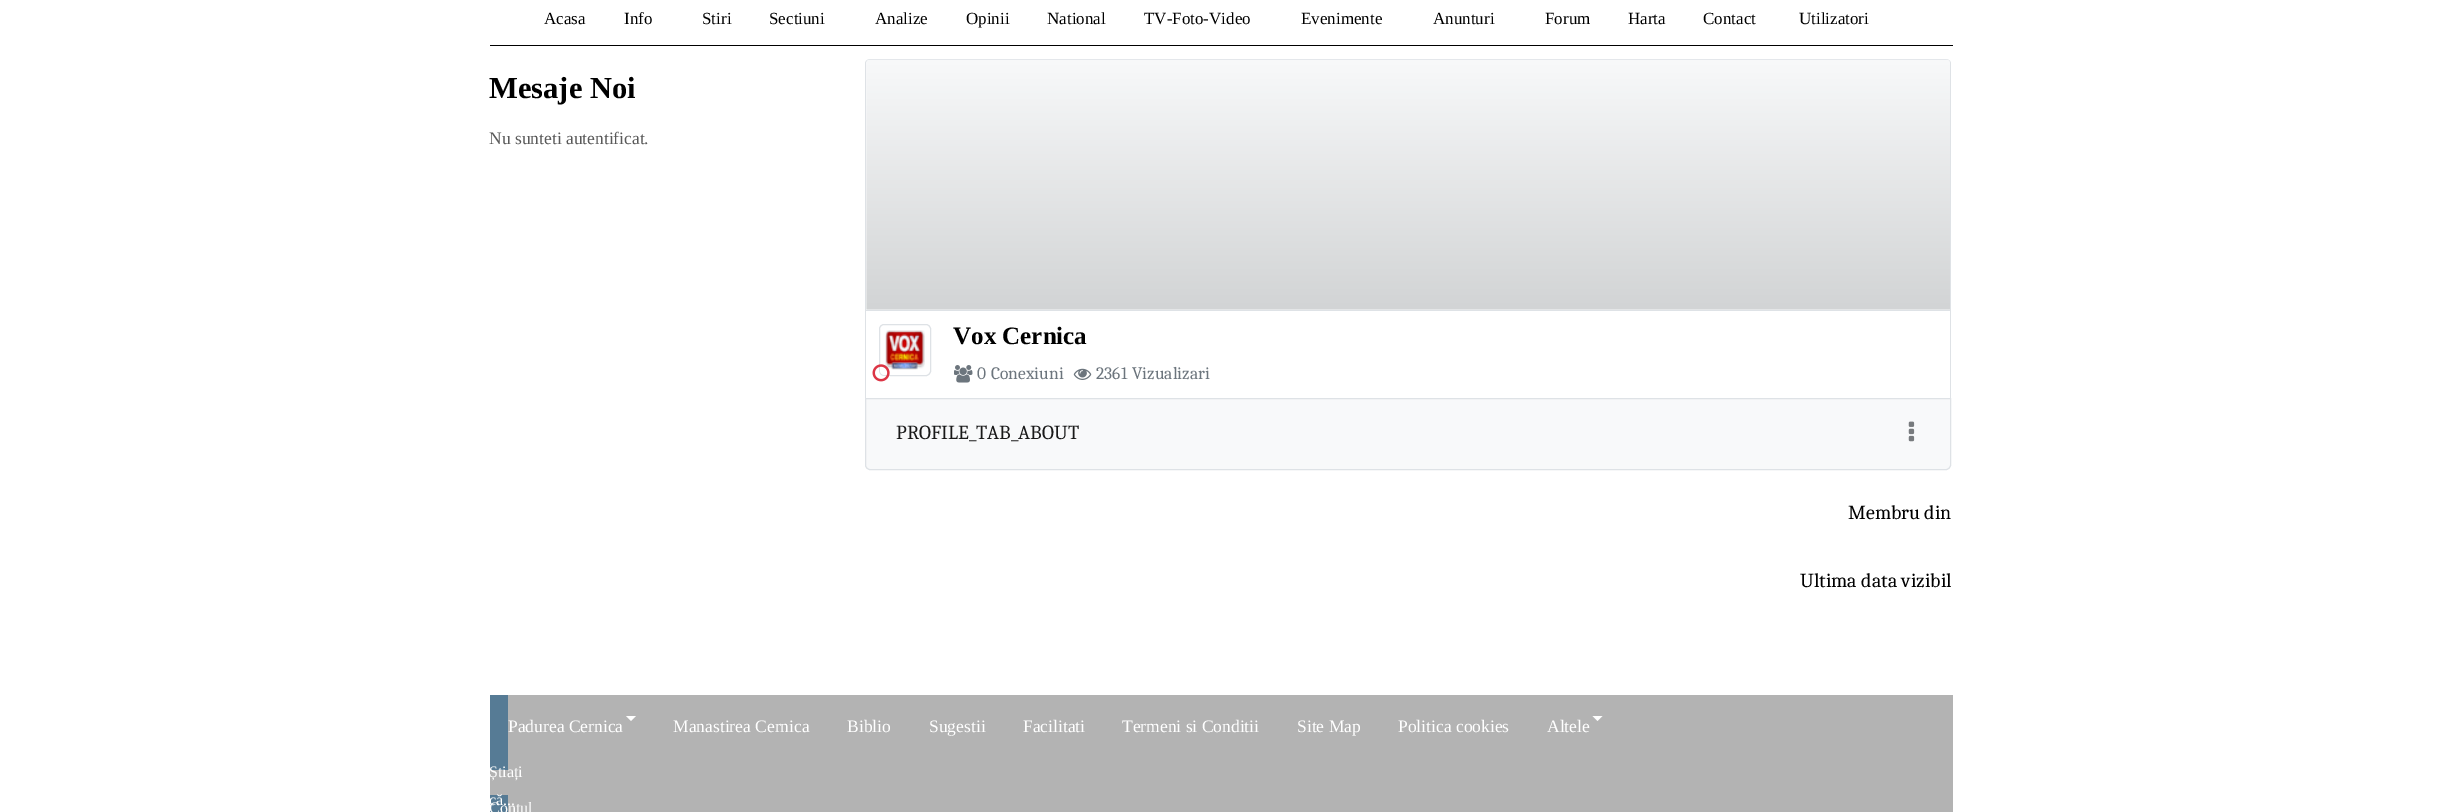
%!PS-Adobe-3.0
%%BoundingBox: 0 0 2441 812
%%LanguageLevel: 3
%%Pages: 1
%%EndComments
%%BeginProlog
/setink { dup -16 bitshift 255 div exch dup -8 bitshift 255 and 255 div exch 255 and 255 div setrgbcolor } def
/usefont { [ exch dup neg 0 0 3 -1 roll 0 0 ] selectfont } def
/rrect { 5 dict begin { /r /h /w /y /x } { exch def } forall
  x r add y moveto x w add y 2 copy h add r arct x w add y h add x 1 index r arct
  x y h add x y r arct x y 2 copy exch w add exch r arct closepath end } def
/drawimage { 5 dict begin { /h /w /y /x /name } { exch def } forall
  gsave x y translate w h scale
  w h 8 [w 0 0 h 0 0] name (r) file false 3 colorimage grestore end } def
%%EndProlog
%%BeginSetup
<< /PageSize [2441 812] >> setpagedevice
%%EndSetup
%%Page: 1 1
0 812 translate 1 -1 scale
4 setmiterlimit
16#FFFFFF setink
0 0 2441 812 rectfill
16#000000 setink
490 45 1463 1 rectfill
/LiberationSerif-Regular 17 usefont
[
    [(Acasa) 544 24]
    [(Info) 624 24]
    [(Stiri) 702 24]
    [(Sectiuni) 769 24]
    [(Analize) 875 24]
    [(Opinii) 966 24]
    [(National) 1047 24]
    [(TV-Foto-Video) 1144 24]
    [(Evenimente) 1301 24]
    [(Anunturi) 1433 24]
    [(Forum) 1545 24]
    [(Harta) 1628 24]
    [(Contact) 1703 24]
    [(Utilizatori) 1799 24]
] { aload pop moveto show } forall
/LiberationSerif-Bold 30.5 usefont
489 98 moveto (Mesaje Noi) show
/LiberationSerif-Regular 17.5 usefont
16#5A5A5A setink
489 144 moveto (Nu sunteti autentificat.) show
16#DEE2E6 setink
870 59 moveto 1946 59 lineto 1949 59 1951 61 1951 64 curveto 1951 398 lineto 865 398 lineto 865 64 lineto 865 61 867 59 870 59 curveto closepath 870 60 moveto 1946 60 lineto 1948 60 1950 62 1950 64 curveto 1950 398 lineto 866 398 lineto 866 64 lineto 866 62 868 60 870 60 curveto closepath eofill
16#F8F9FA setink
870 60 moveto 1946 60 lineto 1948 60 1950 62 1950 64 curveto 1950 310 lineto 866 310 lineto 866 64 lineto 866 62 868 60 870 60 curveto closepath fill
(img1.raw) 866 59 1084 251 drawimage
16#DEE2E6 setink
866 310 1084 1 rectfill
879.5 324.5 51 51 4.5 rrect stroke
(img2.raw) 885 330 40 40 drawimage
(img3.raw) 872 364 18 18 drawimage
/LiberationSerif-Bold 25 usefont
16#000000 setink
953 344 moveto (Vox Cernica) show
(img4.raw) 954 365 19 18 drawimage
/Caladea-Regular 17.5 usefont
16#6C757D setink
977 379 moveto (0) show
991 379 moveto (Conexiuni) show
(img5.raw) 1073 368 19 12 drawimage
1096 379 moveto (2361) show
1132 379 moveto (Vizualizari) show
16#F8F9FA setink
865.5 398.5 moveto 1950.5 398.5 lineto 1950.5 465 lineto 1950.5 467.5 1948.5 469.5 1946 469.5 curveto 870 469.5 lineto 867.5 469.5 865.5 467.5 865.5 465 curveto closepath gsave fill grestore
16#DEE2E6 setink
stroke
/Caladea-Regular 20 usefont
16#191919 setink
896 439 moveto (PROFILE_TAB_ABOUT) show
(img6.raw) 1908 421 7 21 drawimage
16#000000 setink
1848 519 moveto (Membru din) show
1800 587 moveto (Ultima data vizibil) show
16#B3B3B3 setink
490 695 1463 117 rectfill
16#FFFFFF setink
626 716 moveto 636 716 lineto 631 721 lineto closepath fill
/LiberationSerif-Regular 17.5 usefont
[
    [(Padurea Cernica) 508 732]
    [(Manastirea Cernica) 673 732]
    [(Biblio) 847 732]
    [(Sugestii) 929 732]
    [(Facilitati) 1023 732]
    [(Termeni si Conditii) 1122 732]
    [(Site Map) 1297 732]
    [(Politica cookies) 1398 732]
] { aload pop moveto show } forall
1592.5 716 moveto 1602.5 716 lineto 1597.5 721 lineto closepath fill
1547 732 moveto (Altele) show
16#567B95 setink
490 695 18 75 rectfill
/LiberationSerif-Regular 16 usefont
16#FFFFFF setink
489 777 moveto (Știați) show
16#567B95 setink
490 795 18 17 rectfill
16#FFFFFF setink
489 805 moveto (că...) show
489 813 moveto (Contul) show
showpage
%%EOF
